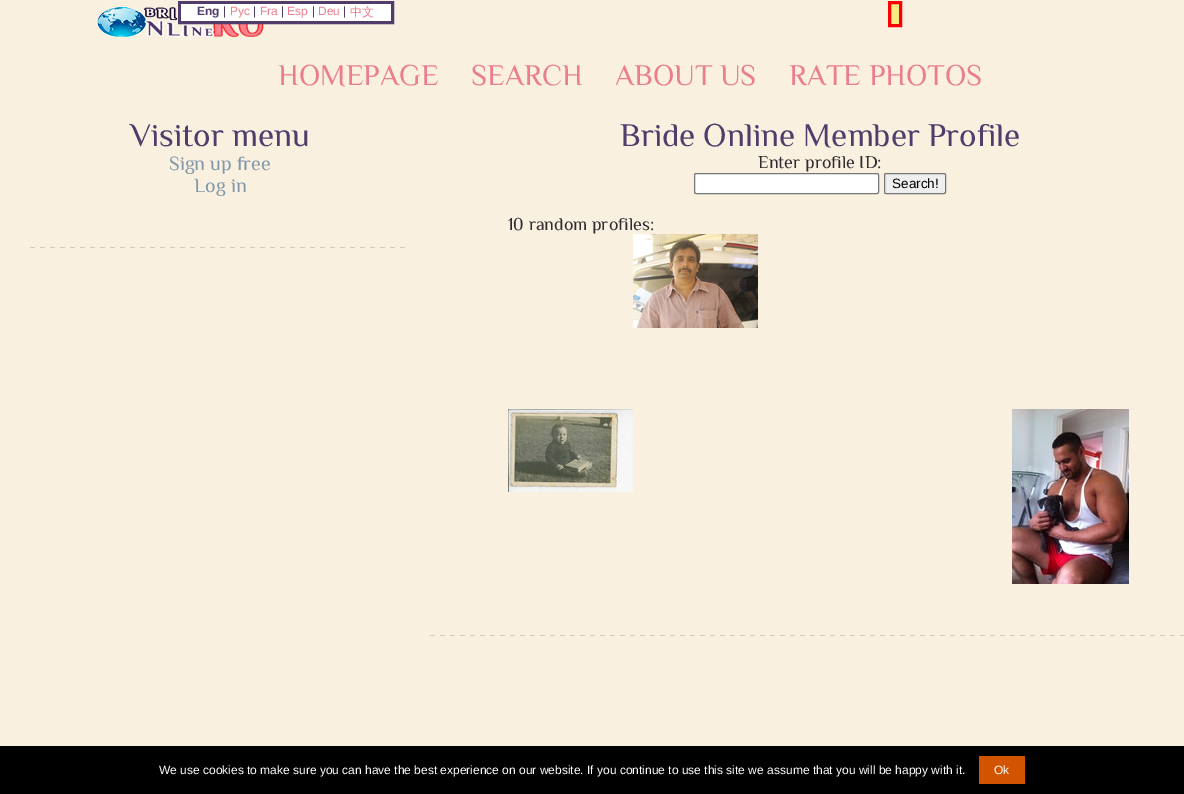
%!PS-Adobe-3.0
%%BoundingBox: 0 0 1184 794
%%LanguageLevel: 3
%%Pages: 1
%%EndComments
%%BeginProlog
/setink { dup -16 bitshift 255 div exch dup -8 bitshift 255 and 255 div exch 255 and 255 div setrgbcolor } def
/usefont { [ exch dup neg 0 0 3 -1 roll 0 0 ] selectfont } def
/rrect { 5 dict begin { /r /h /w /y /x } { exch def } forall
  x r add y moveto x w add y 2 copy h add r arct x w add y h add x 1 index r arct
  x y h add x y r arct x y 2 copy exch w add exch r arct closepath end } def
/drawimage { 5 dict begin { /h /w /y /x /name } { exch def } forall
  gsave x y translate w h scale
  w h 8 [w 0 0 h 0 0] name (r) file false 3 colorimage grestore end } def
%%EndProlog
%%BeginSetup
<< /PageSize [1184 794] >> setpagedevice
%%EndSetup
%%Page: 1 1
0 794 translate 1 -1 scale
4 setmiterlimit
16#F9F0DF setink
0 0 1184 794 rectfill
(img1.raw) 97 7 167 30 drawimage
16#503D6B setink
3 setlinewidth
179.5 2.5 213 20 rectstroke
16#FFFFFF setink
181 4 210 17 rectfill
/LiberationSans-Bold 12 usefont
16#503D6B setink
197 15 moveto (Eng) show
/LiberationSans-Regular 12 usefont
223 15 moveto (|) show
16#EB7E8D setink
230 15 moveto (Рус) show
16#503D6B setink
253 15 moveto (|) show
16#EB7E8D setink
260 15 moveto (Fra) show
16#503D6B setink
281 15 moveto (|) show
16#EB7E8D setink
287 15 moveto (Esp) show
16#503D6B setink
312 15 moveto (|) show
16#EB7E8D setink
318 15 moveto (Deu) show
16#503D6B setink
343 15 moveto (|) show
/WenQuanYiZenHei-Medium 12 usefont
16#EB7E8D setink
350 16 moveto (中文) show
16#F7EB83 setink
889.5 2.5 moveto 900.5 2.5 lineto 900.5 25.5 lineto 889.5 25.5 lineto closepath gsave fill grestore
16#FF0000 setink
stroke
/Philosopher-Regular 30 usefont
16#EB7E8D setink
[
    [(HOMEPAGE) 278 85]
    [(SEARCH) 471 85]
    [(ABOUT US) 615 85]
    [(RATE PHOTOS) 789 85]
] { aload pop moveto show } forall
/Philosopher-Regular 33 usefont
16#503D6B setink
130 146 moveto (Visitor menu) show
/Philosopher-Regular 20 usefont
16#8097A8 setink
169 170 moveto (Sign up free) show
194 192 moveto (Log in) show
(img2.raw) 30 247 375 1 drawimage
(img3.raw) 430 635 754 1 drawimage
/Philosopher-Regular 33 usefont
16#503D6B setink
620 146 moveto (Bride Online Member Profile) show
/Philosopher-Regular 18 usefont
16#302B32 setink
758 168 moveto (Enter profile ID:) show
16#FFFFFF setink
694.5 173.5 184 20 1.5 rrect gsave fill grestore
16#767676 setink
1 setlinewidth
stroke
16#EFEFEF setink
884.5 173.5 61 20 1.5 rrect gsave fill grestore
16#767676 setink
stroke
/LiberationSans-Regular 13.5 usefont
16#000000 setink
892 188 moveto (Search!) show
/Philosopher-Regular 18 usefont
16#302B32 setink
508 230 moveto (10 random profiles:) show
(img4.raw) 633 234 125 94 drawimage
(img5.raw) 508 409 125 83 drawimage
(img6.raw) 1012 409 117 175 drawimage
16#000000 setink
0 746 1184 48 rectfill
/LiberationSans-Regular 12 usefont
16#FFFFFF setink
159 774 moveto (We use cookies to make sure you can have the best experience on our website. If you continue to use this site we assume that you will be happy with it.) show
16#D35400 setink
979 756 46 28 rectfill
16#FFFFFF setink
994 774 moveto (Ok) show
showpage
%%EOF
